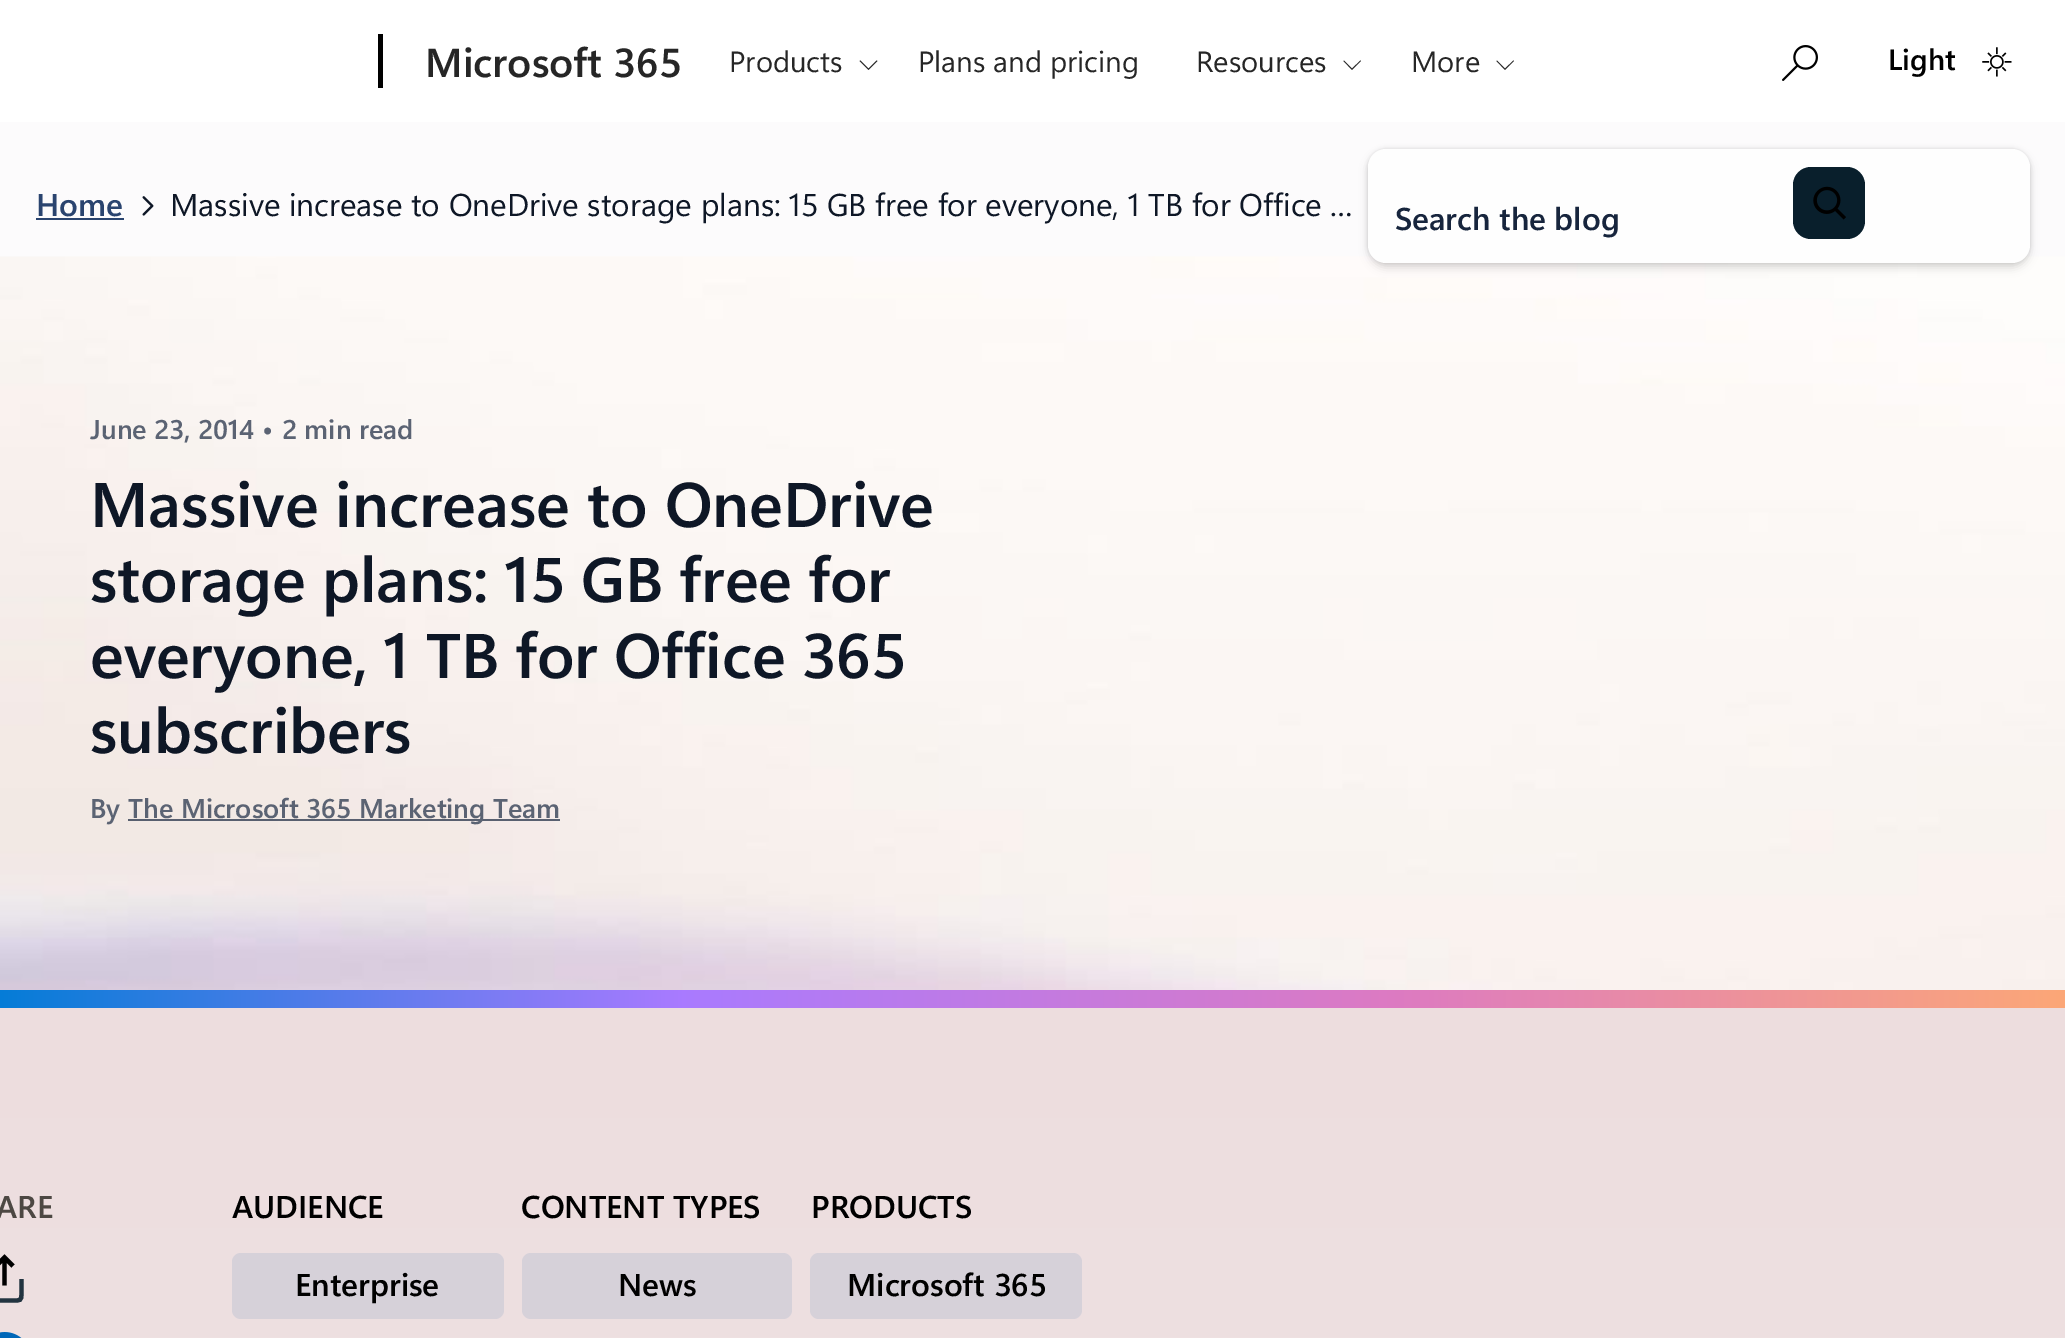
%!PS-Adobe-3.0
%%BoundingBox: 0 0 2065 1338
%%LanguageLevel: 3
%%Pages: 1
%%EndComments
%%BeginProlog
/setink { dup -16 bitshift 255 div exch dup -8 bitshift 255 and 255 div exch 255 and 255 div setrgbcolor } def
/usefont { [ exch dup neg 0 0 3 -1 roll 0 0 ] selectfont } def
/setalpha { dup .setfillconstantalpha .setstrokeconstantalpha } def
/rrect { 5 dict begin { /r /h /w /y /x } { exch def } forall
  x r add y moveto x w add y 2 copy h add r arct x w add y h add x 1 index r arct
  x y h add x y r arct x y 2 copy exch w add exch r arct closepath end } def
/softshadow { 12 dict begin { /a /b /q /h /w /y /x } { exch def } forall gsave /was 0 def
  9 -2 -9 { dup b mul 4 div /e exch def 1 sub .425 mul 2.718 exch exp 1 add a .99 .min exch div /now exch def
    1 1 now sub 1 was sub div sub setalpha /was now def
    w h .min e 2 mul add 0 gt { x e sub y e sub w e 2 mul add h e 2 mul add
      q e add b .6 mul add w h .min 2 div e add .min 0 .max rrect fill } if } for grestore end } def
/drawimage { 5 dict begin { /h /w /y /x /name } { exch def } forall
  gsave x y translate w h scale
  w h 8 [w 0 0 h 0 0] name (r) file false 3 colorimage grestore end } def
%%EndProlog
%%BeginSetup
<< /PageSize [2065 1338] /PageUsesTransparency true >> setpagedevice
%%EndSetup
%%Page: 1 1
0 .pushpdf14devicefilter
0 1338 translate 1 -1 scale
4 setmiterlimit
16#FCFBFC setink
0 0 2065 1338 rectfill
16#FFFFFF setink
0 0 2065 122 rectfill
16#000000 setink
378 34 5 54 rectfill
/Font-SemiBold 40.5 usefont
16#262626 setink
425 77 moveto (Microsoft 365) show
/Font-Regular 29.25 usefont
729 72 moveto (Products) show
876.5 60.5 moveto 877.5 61 lineto 868.5 70 lineto 859.5 61 lineto 860.5 60.5 lineto 868.5 68.5 lineto closepath fill
918 72 moveto (Plans and pricing) show
1196 72 moveto (Resources) show
1360.5 60.5 moveto 1361 61 lineto 1352 70 lineto 1343.5 61 lineto 1344 60.5 lineto 1352 68.5 lineto closepath fill
1411 72 moveto (More) show
1513.5 60.5 moveto 1514 61 lineto 1505 70 lineto 1496.5 61 lineto 1497 60.5 lineto 1505 68.5 lineto closepath fill
(img1.raw) 1782 45 36 36 drawimage
/Font-SemiBold 29.25 usefont
16#000000 setink
1888 70 moveto (Light) show
(img2.raw) 1982 47 30 30 drawimage
(img3.raw) 0 256 2065 734 drawimage
/Font-SemiBold 31.5 usefont
16#2A446F setink
36 216 moveto (Home) show
36 218 88 2 rectfill
(img4.raw) 142 196 12 20 drawimage
/Font-Regular 31.5 usefont
16#0E1726 setink
170 216 moveto (Massive increase to OneDrive storage plans: 15 GB free for everyone, 1 TB for Office …) show
16#000000 setink
1368 149 662 114 18 2 0.12 softshadow
1368 153 662 115 18 4.5 0.14 softshadow
16#FEFEFE setink
1368 149 662 114 18 rrect fill
/Font-SemiBold 31.5 usefont
16#17253D setink
1395 230 moveto (Search the blog) show
16#091F2C setink
1793 167 72 72 18 rrect fill
(img5.raw) 1813 186 33 34 drawimage
/Font-SemiBold 27 usefont
16#5B6373 setink
90 439 moveto (June 23, 2014 •) show
282 439 moveto (2 min read) show
/Font-SemiBold 63 usefont
16#0E1726 setink
90 527 moveto (Massive increase to OneDrive) show
90 602 moveto -1.5 0 32 (storage plans: 15 GB free for) widthshow
90 678 moveto -1.5 0 32 (everyone, 1 TB for Office 365) widthshow
90 753 moveto (subscribers) show
/Font-SemiBold 27 usefont
16#5B6373 setink
90 818 moveto (By) show
0.7 setalpha
16#17253D setink
128 819 432 2 rectfill
1 setalpha
16#5B6373 setink
128 818 moveto (The Microsoft 365 Marketing Team) show
gsave 0 990 moveto 2065 990 lineto 2065 1008 lineto 0 1008 lineto closepath clip newpath
<< /ShadingType 2 /ColorSpace /DeviceRGB /Coords [0 999 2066 999] /Extend [true true] /Function << /FunctionType 3 /Domain [0 1] /Functions [<< /FunctionType 2 /Domain [0 1] /C0 [0.02 0.49 0.843] /C1 [0.663 0.478 1] /N 1 >> << /FunctionType 2 /Domain [0 1] /C0 [0.663 0.478 1] /C1 [0.863 0.478 0.765] /N 1 >> << /FunctionType 2 /Domain [0 1] /C0 [0.863 0.478 0.765] /C1 [0.988 0.655 0.467] /N 1 >>] /Bounds [0.33 0.67] /Encode [0 1 0 1 0 1] >> >> shfill grestore
gsave 0 1008 moveto 2065 1008 lineto 2065 1338 lineto 0 1338 lineto closepath clip newpath
<< /ShadingType 2 /ColorSpace /DeviceRGB /Coords [1033 1008 1033 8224] /Extend [true true] /Function << /FunctionType 3 /Domain [0 1] /Functions [<< /FunctionType 2 /Domain [0 1] /C0 [0.929 0.867 0.871] /C1 [0.992 0.984 0.98] /N 1 >> << /FunctionType 2 /Domain [0 1] /C0 [0.992 0.984 0.98] /C1 [0.929 0.867 0.871] /N 1 >>] /Bounds [0.5] /Encode [0 1 0 1] >> >> shfill grestore
/Font-SemiBold 31.5 usefont
16#4D4843 setink
-4 1218 moveto (ARE) show
16#223440 setink
4.3 setlinewidth
-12.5 1279 moveto -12.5 1293.5 lineto -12.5 1301 -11 1300.5 -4 1300.5 curveto 13 1300.5 lineto 20 1300.5 21.5 1301 21.5 1293.5 curveto 21.5 1279 lineto stroke
16#000000 setink
13 1266 moveto 4.5 1257.5 lineto -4 1266 lineto 4.5 1257.5 moveto 4.5 1285.5 lineto stroke
(img6.raw) 0 1332 22 6 drawimage
232 1218 moveto (AUDIENCE) show
16#D6D1D9 setink
232 1253 272 66 9 rrect fill
16#000000 setink
295 1296 moveto (Enterprise) show
521 1218 moveto (CONTENT TYPES) show
16#D6D1D9 setink
522 1253 270 66 9 rrect fill
16#000000 setink
618 1296 moveto (News) show
811 1218 moveto (PRODUCTS) show
16#D6D1D9 setink
810 1253 272 66 9 rrect fill
16#000000 setink
847 1296 moveto (Microsoft 365) show
.poppdf14devicefilter showpage
%%EOF
